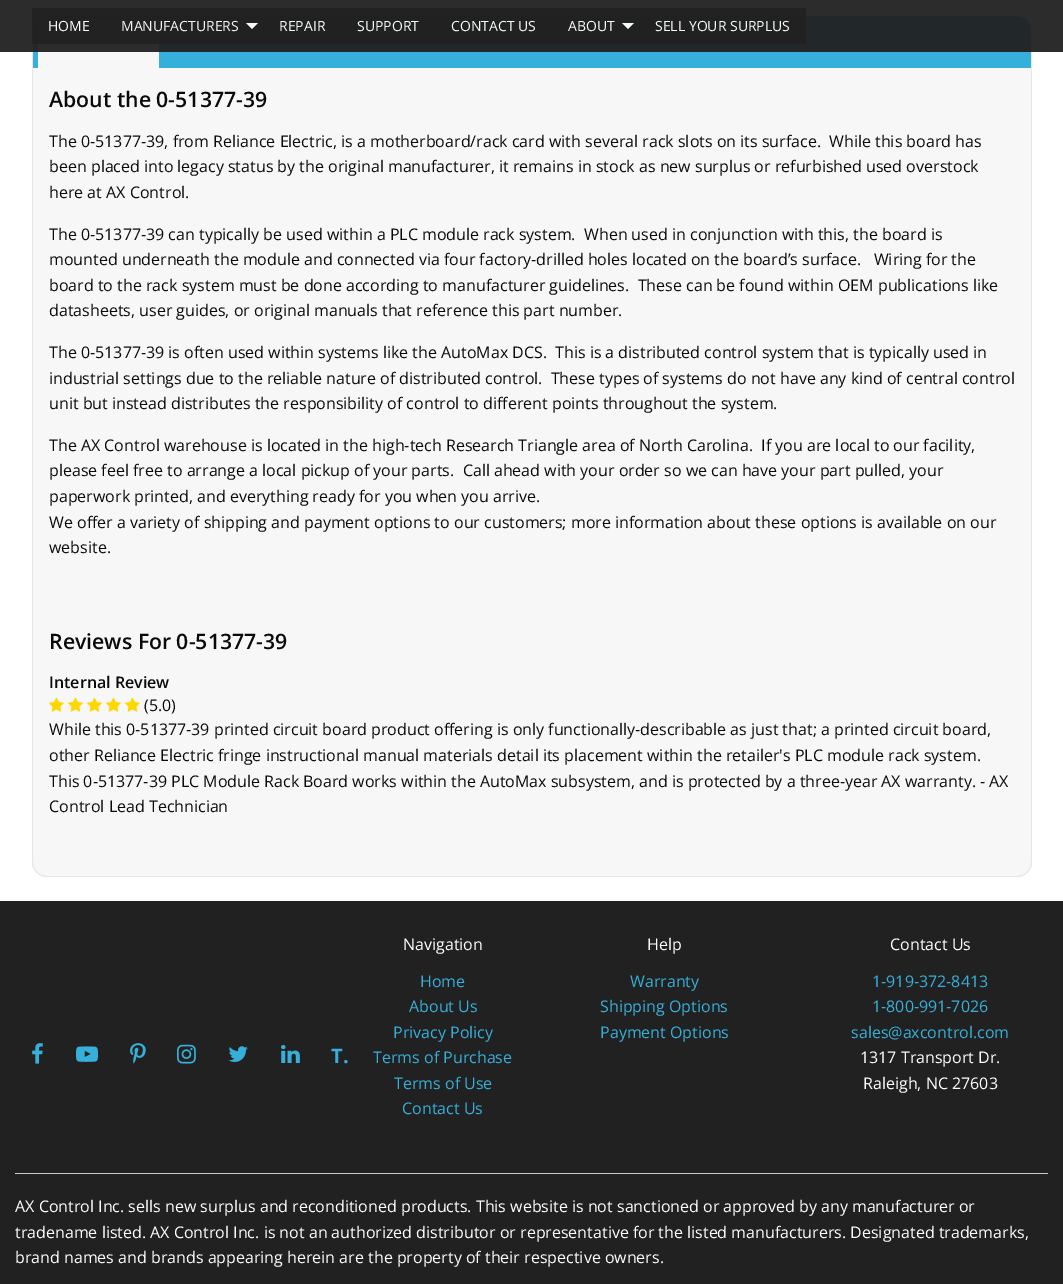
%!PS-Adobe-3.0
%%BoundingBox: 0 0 1063 1284
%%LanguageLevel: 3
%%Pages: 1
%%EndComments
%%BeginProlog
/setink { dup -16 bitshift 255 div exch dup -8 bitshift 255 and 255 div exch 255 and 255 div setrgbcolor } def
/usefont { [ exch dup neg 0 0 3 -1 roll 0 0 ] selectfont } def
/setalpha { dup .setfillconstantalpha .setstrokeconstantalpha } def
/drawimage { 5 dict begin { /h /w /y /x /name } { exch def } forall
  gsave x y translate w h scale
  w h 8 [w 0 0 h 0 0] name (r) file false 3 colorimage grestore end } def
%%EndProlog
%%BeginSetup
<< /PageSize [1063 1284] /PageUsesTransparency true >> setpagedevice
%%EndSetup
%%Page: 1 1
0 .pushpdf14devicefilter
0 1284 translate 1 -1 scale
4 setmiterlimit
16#FFFFFF setink
0 0 1063 1284 rectfill
16#36B0DA setink
47 15 moveto 1017 15 lineto 1025.5 15 1032 21.5 1032 30 curveto 1032 68 lineto 32 68 lineto 32 30 lineto 32 21.5 38.5 15 47 15 curveto closepath fill
16#E6E6E6 setink
47 15 moveto 1017 15 lineto 1025 15 1032 22 1032 30 curveto 1032 68 lineto 32 68 lineto 32 30 lineto 32 22 39 15 47 15 curveto closepath 47 16 moveto 1017 16 lineto 1025 16 1031 22 1031 30 curveto 1031 68 lineto 33 68 lineto 33 30 lineto 33 22 39 16 47 16 curveto closepath eofill
16#F7F7F7 setink
53 18 moveto 144 18 lineto 152.5 18 159 24.5 159 33 curveto 159 68 lineto 38 68 lineto 38 33 lineto 38 24.5 44.5 18 53 18 curveto closepath fill
0.95 setalpha
16#212121 setink
0 0 1063 52 rectfill
32 8 774 36 rectfill
/OpenSans-Regular 14 usefont
1 setalpha
16#FFFFFF setink
48 31 moveto (HOME) show
16#F4F4F4 setink
121 31 moveto (MANUFACTURERS) show
16#F5FBFD setink
246 23 moveto 258 23 lineto 252 29 lineto closepath fill
[
    [(REPAIR) 279 31]
    [(SUPPORT) 357 31]
    [(CONTACT US) 451 31]
    [(ABOUT) 568 31]
] { aload pop moveto show } forall
622 23 moveto 634 23 lineto 628 29 lineto closepath fill
655 31 moveto (SELL YOUR SURPLUS) show
16#F7F7F7 setink
32 68 moveto 1032 68 lineto 1032 862 lineto 1032 870.5 1025.5 877 1017 877 curveto 47 877 lineto 38.5 877 32 870.5 32 862 curveto closepath fill
16#E6E6E6 setink
32 68 moveto 1032 68 lineto 1032 862 lineto 1032 870 1025 877 1017 877 curveto 47 877 lineto 39 877 32 870 32 862 curveto closepath 33 68 moveto 1031 68 lineto 1031 862 lineto 1031 870 1025 876 1017 876 curveto 47 876 lineto 39 876 33 870 33 862 curveto closepath eofill
/OpenSans-SemiBold 21.25 usefont
16#0A0A0A setink
49 107 moveto (About the 0-51377-39) show
/OpenSans-Regular 16 usefont
[
    [(The 0-51377-39, from Reliance Electric, is a motherboard/rack card with several rack slots on its surface.  While this board has) 49 147]
    [(been placed into legacy status by the original manufacturer, it remains in stock as new surplus or refurbished used overstock) 49 172]
    [(here at AX Control.) 49 198]
    [(The 0-51377-39 can typically be used within a PLC module rack system.  When used in conjunction with this, the board is) 49 240]
    [(mounted underneath the module and connected via four factory-drilled holes located on the board’s surface.   Wiring for the) 49 265]
    [(board to the rack system must be done according to manufacturer guidelines.  These can be found within OEM publications like) 49 291]
    [(datasheets, user guides, or original manuals that reference this part number.) 49 316]
    [(The 0-51377-39 is often used within systems like the AutoMax DCS.  This is a distributed control system that is typically used in) 49 358]
    [(industrial settings due to the reliable nature of distributed control.  These types of systems do not have any kind of central control) 49 384]
    [(unit but instead distributes the responsibility of control to different points throughout the system.) 49 409]
    [(The AX Control warehouse is located in the high-tech Research Triangle area of North Carolina.  If you are local to our facility,) 49 451]
    [(please feel free to arrange a local pickup of your parts.  Call ahead with your order so we can have your part pulled, your) 49 476]
    [(paperwork printed, and everything ready for you when you arrive.) 49 502]
    [(We offer a variety of shipping and payment options to our customers; more information about these options is available on our) 49 528]
    [(website.) 49 553]
] { aload pop moveto show } forall
/OpenSans-SemiBold 21.25 usefont
49 649 moveto (Reviews For 0-51377-39) show
/OpenSans-SemiBold 16 usefont
49 688 moveto (Internal Review) show
(img1.raw) 49 697 15 15 drawimage
(img1.raw) 68 697 15 15 drawimage
(img1.raw) 87 697 15 15 drawimage
(img1.raw) 106 697 15 15 drawimage
(img1.raw) 125 697 15 15 drawimage
/OpenSans-Regular 16 usefont
[
    [(\(5.0\)) 144 711]
    [(While this 0-51377-39 printed circuit board product offering is only functionally-describable as just that; a printed circuit board,) 49 735]
    [(other Reliance Electric fringe instructional manual materials detail its placement within the retailer's PLC module rack system.) 49 761]
    [(This 0-51377-39 PLC Module Rack Board works within the AutoMax subsystem, and is protected by a three-year AX warranty. - AX) 49 787]
    [(Control Lead Technician) 49 812]
] { aload pop moveto show } forall
16#212121 setink
0 901 1063 383 rectfill
(img2.raw) 32 1043 11 21 drawimage
(img3.raw) 76 1046 22 16 drawimage
(img4.raw) 130 1043 16 21 drawimage
(img5.raw) 177 1044 19 20 drawimage
(img6.raw) 228 1046 20 16 drawimage
(img7.raw) 281 1045 19 18 drawimage
/OpenSans-Bold 20 usefont
16#36B0DA setink
331 1063 moveto (T.) show
/OpenSans-Regular 16 usefont
16#FFFFFF setink
403 950 moveto (Navigation) show
16#36B0DA setink
[
    [(Home) 420 987]
    [(About Us) 409 1012]
    [(Privacy Policy) 393 1038]
    [(Terms of Purchase) 373 1063]
    [(Terms of Use) 394 1089]
    [(Contact Us) 402 1114]
] { aload pop moveto show } forall
16#FFFFFF setink
647 950 moveto (Help) show
16#36B0DA setink
[
    [(Warranty) 630 987]
    [(Shipping Options) 600 1012]
    [(Payment Options) 600 1038]
] { aload pop moveto show } forall
16#FFFFFF setink
890 950 moveto (Contact Us) show
16#36B0DA setink
[
    [(1-919-372-8413) 872 987]
    [(1-800-991-7026) 872 1012]
    [(sales@axcontrol.com) 851 1038]
] { aload pop moveto show } forall
16#FFFFFF setink
860 1063 moveto (1317 Transport Dr.) show
863 1089 moveto (Raleigh, NC 27603) show
16#CACACA setink
15 1173 1033 1 rectfill
16#FFFFFF setink
[
    [(AX Control Inc. sells new surplus and reconditioned products. This website is not sanctioned or approved by any manufacturer or) 15 1212]
    [(tradename listed. AX Control Inc. is not an authorized distributor or representative for the listed manufacturers. Designated trademarks,) 15 1238]
    [(brand names and brands appearing herein are the property of their respective owners.) 15 1263]
] { aload pop moveto show } forall
.poppdf14devicefilter showpage
%%EOF
